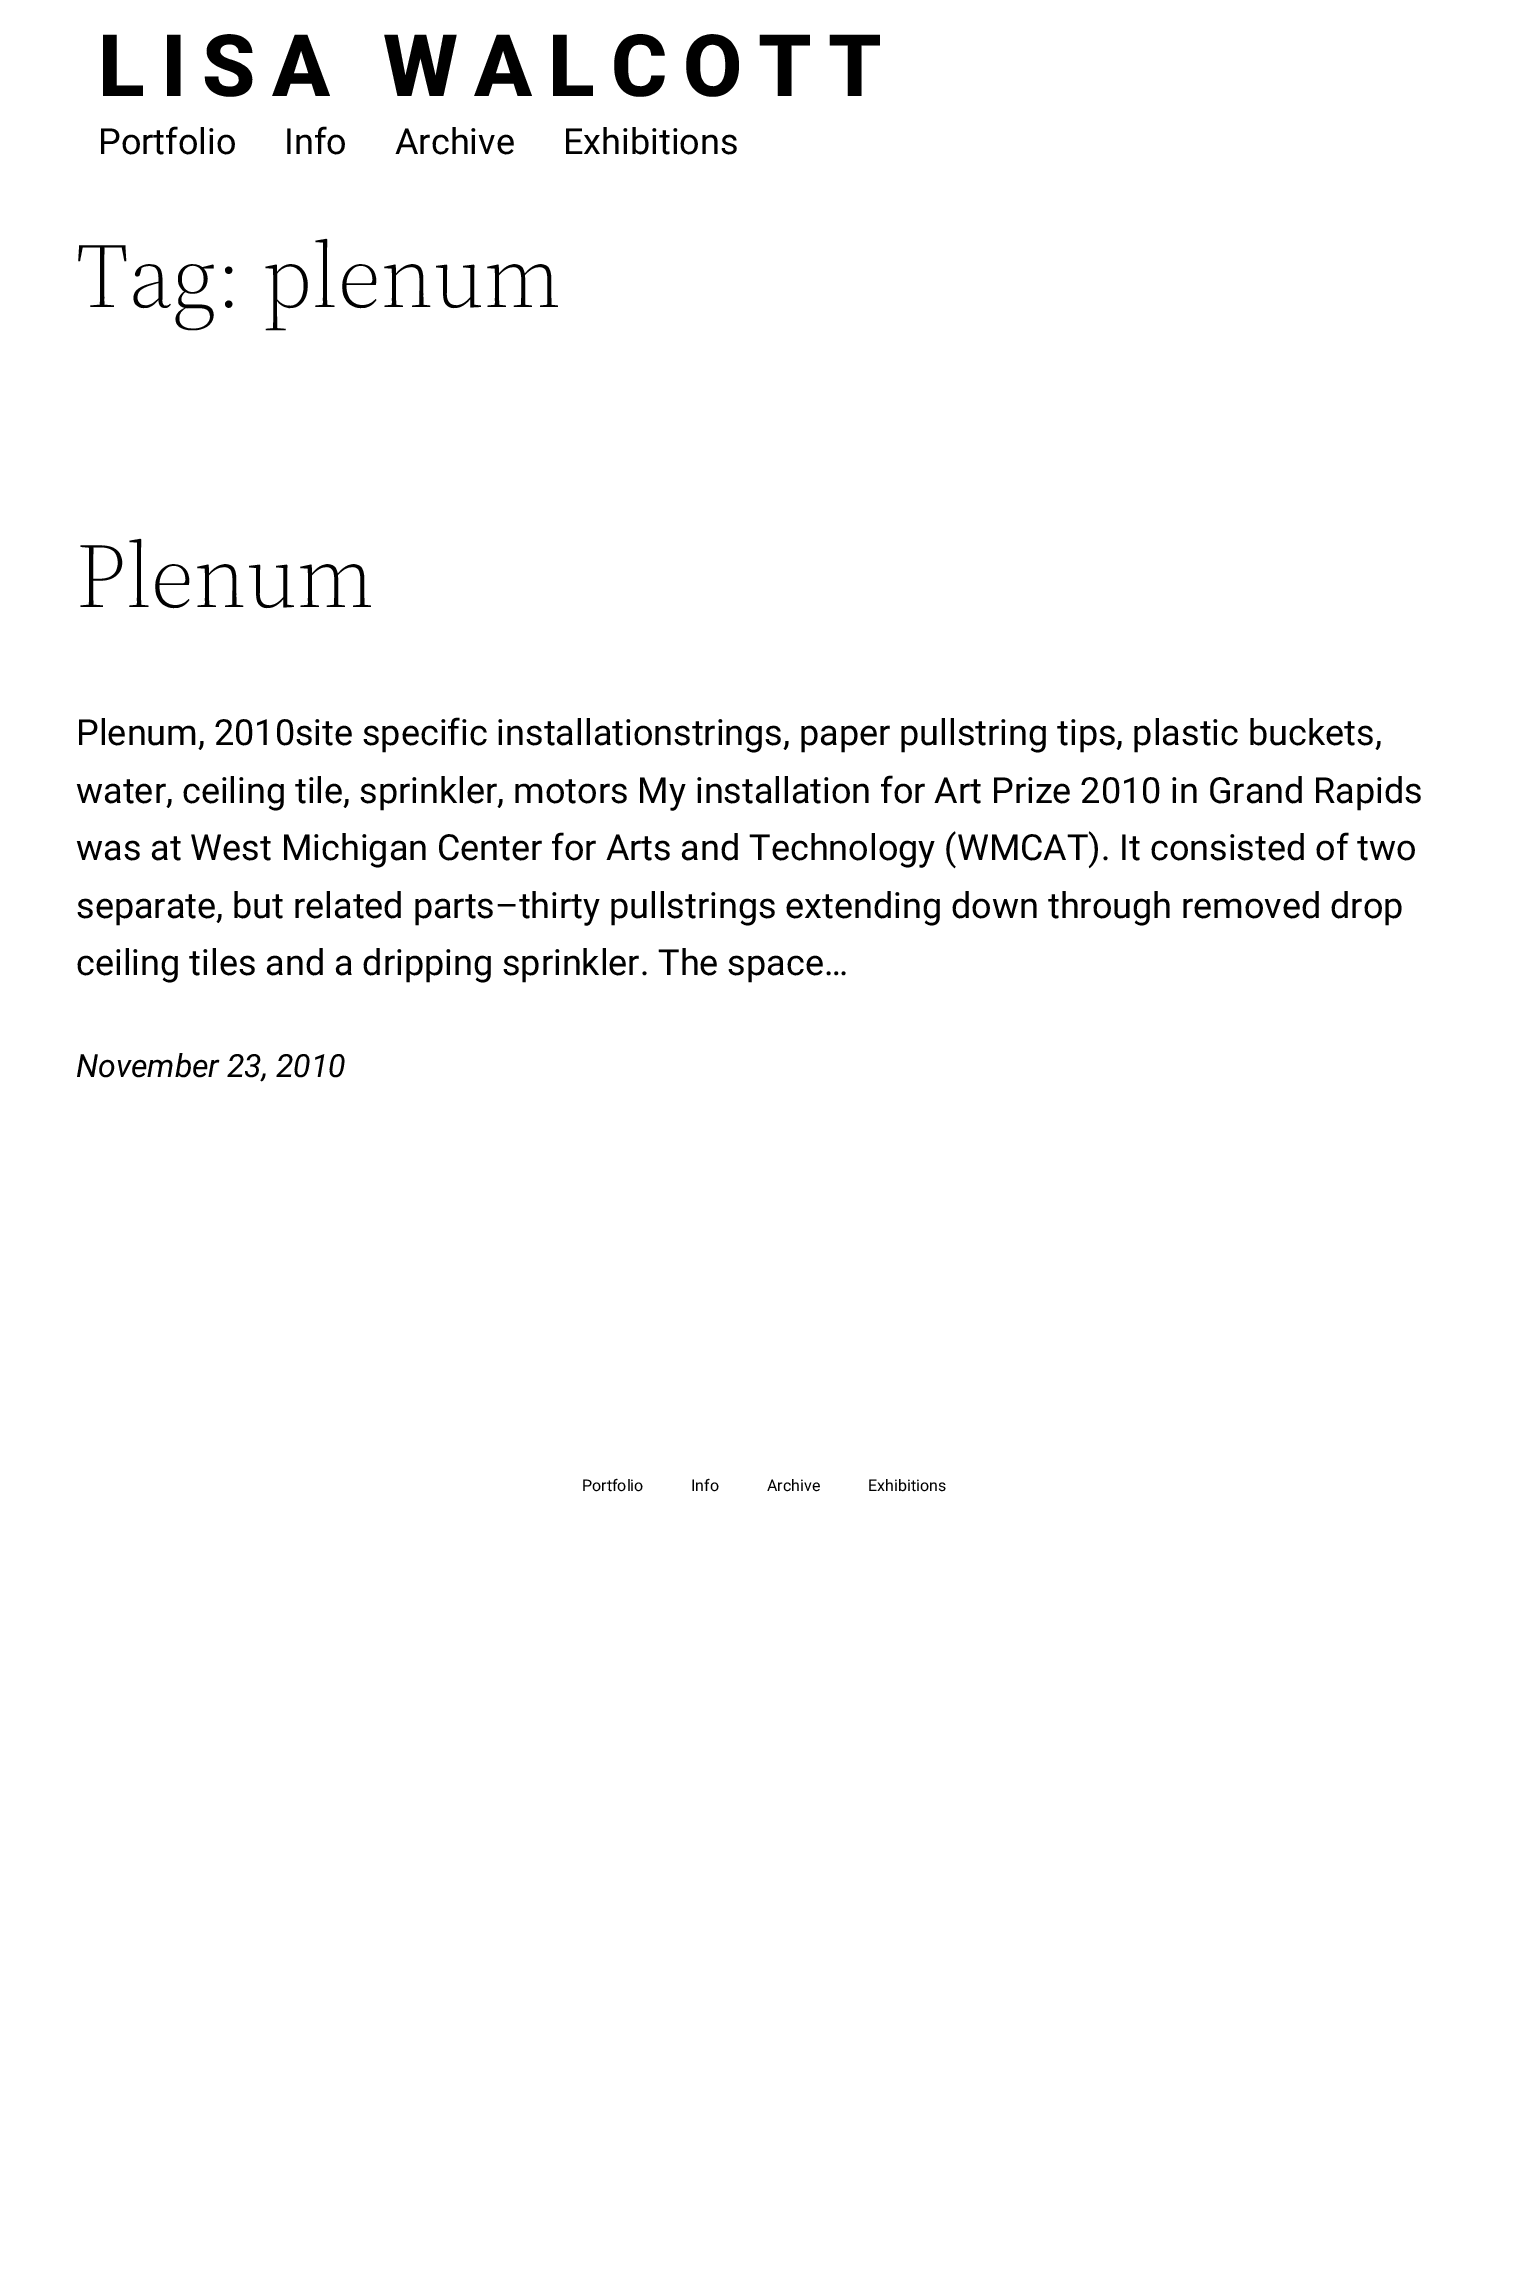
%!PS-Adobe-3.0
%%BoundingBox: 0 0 1527 2280
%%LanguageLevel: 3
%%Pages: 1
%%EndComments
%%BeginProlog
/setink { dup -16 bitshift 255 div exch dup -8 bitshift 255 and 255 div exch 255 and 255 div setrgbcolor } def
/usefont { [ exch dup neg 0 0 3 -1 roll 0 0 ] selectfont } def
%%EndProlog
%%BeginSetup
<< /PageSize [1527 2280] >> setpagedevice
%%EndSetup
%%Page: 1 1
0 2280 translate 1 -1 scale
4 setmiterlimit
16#FFFFFF setink
0 0 1527 2280 rectfill
/Roboto-ExtraBold 86 usefont
16#000000 setink
98 96 moveto 16 0 (LISA WALCOTT) ashow
/Roboto-Regular 36 usefont
[
    [(Portfolio) 98 154]
    [(Info) 284 154]
    [(Archive) 395 154]
    [(Exhibitions) 563 154]
] { aload pop moveto show } forall
/SourceSerif4-Light 91.5 usefont
76 307 moveto (Tag: plenum) show
76 607 moveto (Plenum) show
/Roboto-Regular 36 usefont
[
    [(Plenum, 2010site specific installationstrings, paper pullstring tips, plastic buckets,) 76 745]
    [(water, ceiling tile, sprinkler, motors My installation for Art Prize 2010 in Grand Rapids) 76 803]
    [(was at West Michigan Center for Arts and Technology \(WMCAT\). It consisted of two) 76 860]
    [(separate, but related parts–thirty pullstrings extending down through removed drop) 76 918]
    [(ceiling tiles and a dripping sprinkler. The space…) 76 975]
] { aload pop moveto show } forall
/Roboto-Italic 32 usefont
76 1077 moveto (November 23, 2010) show
/Roboto-Regular 16 usefont
[
    [(Portfolio) 582 1491]
    [(Info) 691 1491]
    [(Archive) 767 1491]
    [(Exhibitions) 868 1491]
] { aload pop moveto show } forall
showpage
%%EOF
